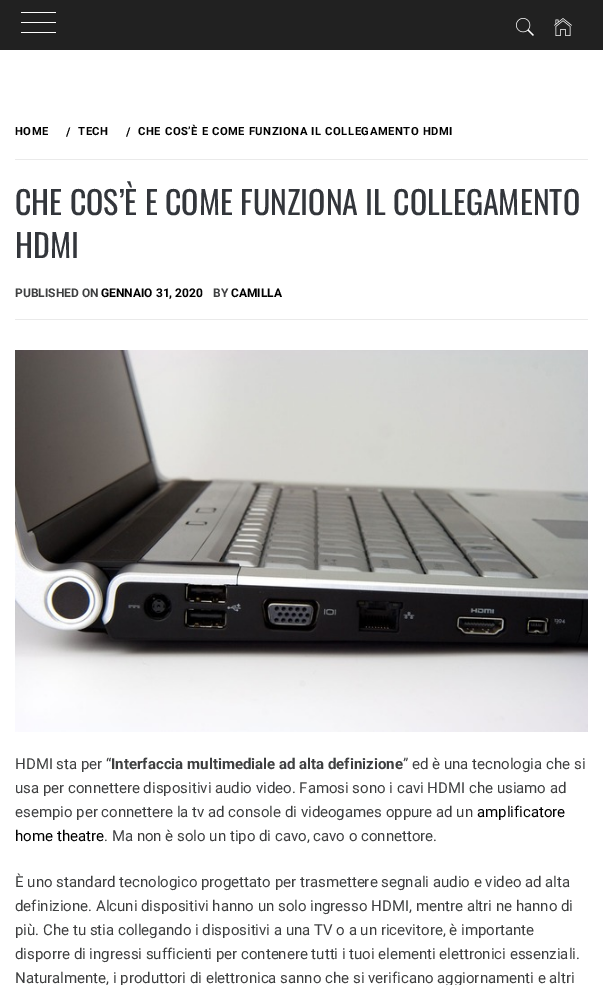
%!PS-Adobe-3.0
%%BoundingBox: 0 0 603 985
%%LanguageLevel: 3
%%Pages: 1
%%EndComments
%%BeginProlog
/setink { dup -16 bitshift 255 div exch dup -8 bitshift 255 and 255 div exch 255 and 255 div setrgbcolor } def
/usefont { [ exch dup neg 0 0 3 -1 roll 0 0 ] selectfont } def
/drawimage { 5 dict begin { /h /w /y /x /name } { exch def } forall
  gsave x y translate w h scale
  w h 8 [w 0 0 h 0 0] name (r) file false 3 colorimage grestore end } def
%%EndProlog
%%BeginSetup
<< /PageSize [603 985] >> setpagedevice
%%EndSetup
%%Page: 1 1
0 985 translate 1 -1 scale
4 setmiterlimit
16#FFFFFF setink
0 0 603 985 rectfill
[
    [0 0 603 50 16#212121]
    [21 12 35 1 16#FFFFFF]
    [21 22 35 1 16#FFFFFF]
    [21 32 35 1 16#FFFFFF]
] { aload pop setink rectfill } forall
(img1.raw) 516 18 18 18 drawimage
(img2.raw) 554 18 18 18 drawimage
16#EAEAEA setink
15 319 573 1 rectfill
15 159 573 1 rectfill
/Roboto-Bold 11.25 usefont
16#000000 setink
15 135 moveto 0.55 0 (HOME) ashow
/Roboto-Bold 12 usefont
66 136 moveto 0.55 0 (/) ashow
/Roboto-Bold 11.25 usefont
78 135 moveto 0.55 0 (TECH) ashow
/Roboto-Bold 12 usefont
126 136 moveto 0.55 0 (/) ashow
/Roboto-Bold 11.25 usefont
138 135 moveto 0.55 0 (CHE COS’È E COME FUNZIONA IL COLLEGAMENTO HDMI) ashow
/Oswald-Regular 32 usefont
16#33363B setink
15 215 moveto (CHE COS’È E COME FUNZIONA IL COLLEGAMENTO) show
15 258 moveto (HDMI) show
/Roboto-Bold 12 usefont
16#3E3F40 setink
15 297 moveto (PUBLISHED ON) show
16#000000 setink
101 297 moveto (GENNAIO 31, 2020) show
16#3E3F40 setink
213 297 moveto (BY) show
16#000000 setink
231 297 moveto (CAMILLA) show
(img3.raw) 15 350 573 382 drawimage
/Roboto-Regular 15 usefont
16#3E3F40 setink
15 769 moveto (HDMI sta per “) show
/Roboto-Bold 15 usefont
111 769 moveto (Interfaccia multimediale ad alta definizione) show
/Roboto-Regular 15 usefont
[
    [(” ed è una tecnologia che si) 403 769]
    [(usa per connettere dispositivi audio video. Famosi sono i cavi HDMI che usiamo ad) 15 793]
    [(esempio per connettere la tv ad console di videogames oppure ad un) 15 817]
] { aload pop moveto show } forall
16#000000 setink
477 817 moveto (amplificatore) show
15 841 moveto (home theatre) show
16#3E3F40 setink
[
    [(. Ma non è solo un tipo di cavo, cavo o connettore.) 104 841]
    [(È uno standard tecnologico progettato per trasmettere segnali audio e video ad alta) 15 887]
    [(definizione. Alcuni dispositivi hanno un solo ingresso HDMI, mentre altri ne hanno di) 15 911]
    [(più. Che tu stia collegando i dispositivi a una TV o a un ricevitore, è importante) 15 935]
    [(disporre di ingressi sufficienti per contenere tutti i tuoi elementi elettronici essenziali.) 15 959]
    [(Naturalmente, i produttori di elettronica sanno che si verificano aggiornamenti e altri) 15 983]
] { aload pop moveto show } forall
showpage
%%EOF
